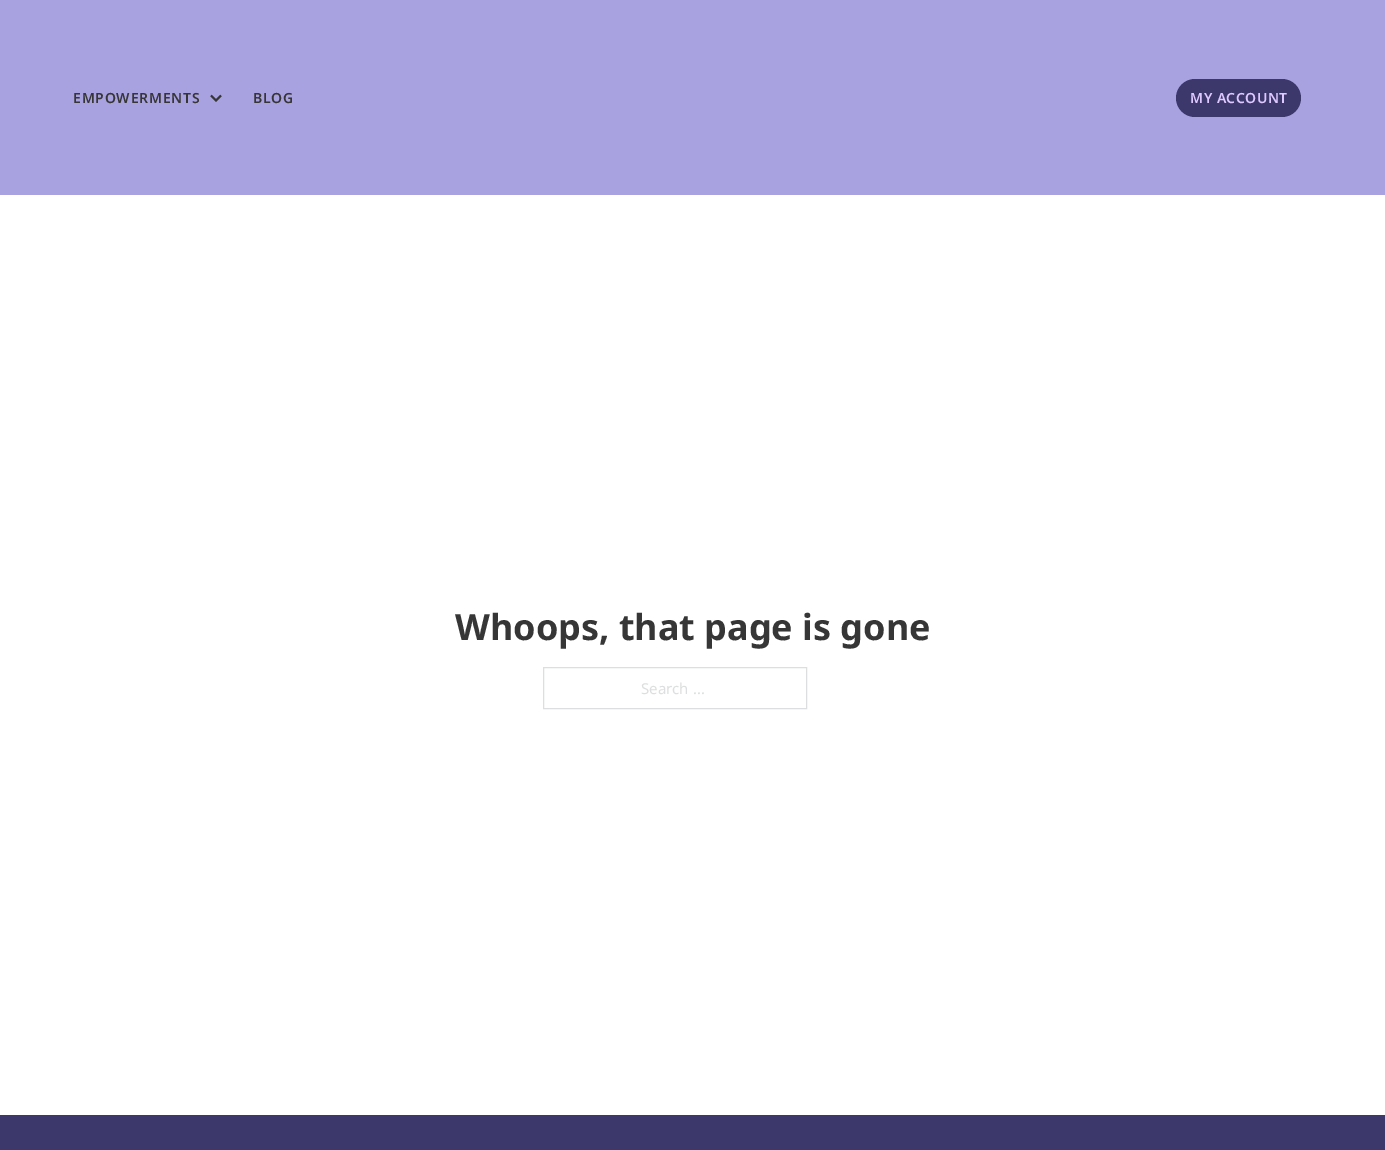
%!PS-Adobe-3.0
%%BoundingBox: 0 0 1385 1150
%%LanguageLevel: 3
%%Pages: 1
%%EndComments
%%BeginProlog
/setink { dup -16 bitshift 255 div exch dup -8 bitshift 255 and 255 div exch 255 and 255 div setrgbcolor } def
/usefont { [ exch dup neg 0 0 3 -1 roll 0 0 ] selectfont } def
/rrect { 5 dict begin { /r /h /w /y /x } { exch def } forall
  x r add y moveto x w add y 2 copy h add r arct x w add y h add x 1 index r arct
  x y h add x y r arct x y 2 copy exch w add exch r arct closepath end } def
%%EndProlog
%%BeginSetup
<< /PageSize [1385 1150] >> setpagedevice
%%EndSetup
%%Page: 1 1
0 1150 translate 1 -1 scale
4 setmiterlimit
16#FFFFFF setink
0 0 1385 1150 rectfill
16#A9A2E1 setink
0 0 1385 195 rectfill
/NotoSans-SemiBold 14 usefont
16#363636 setink
73 103 moveto 0.75 0 (EMPOWERMENTS) ashow
1.8 setlinewidth
211 95.5 moveto 216 100.5 lineto 221 95.5 lineto stroke
253 103 moveto 0.75 0 (BLOG) ashow
16#3D386B setink
1176 79 125 38 19 rrect fill
16#DEC9FF setink
1190 103 moveto 0.5 0 (MY ACCOUNT) ashow
/NotoSans-Bold 36 usefont
16#363636 setink
455 640 moveto (Whoops, that page is gone) show
16#DDDEDF setink
1 setlinewidth
543.5 667.5 263 41 rectstroke
/NotoSans-Regular 15 usefont
641 694 moveto (Search ...) show
16#3D386B setink
0 1115 1385 35 rectfill
showpage
%%EOF
